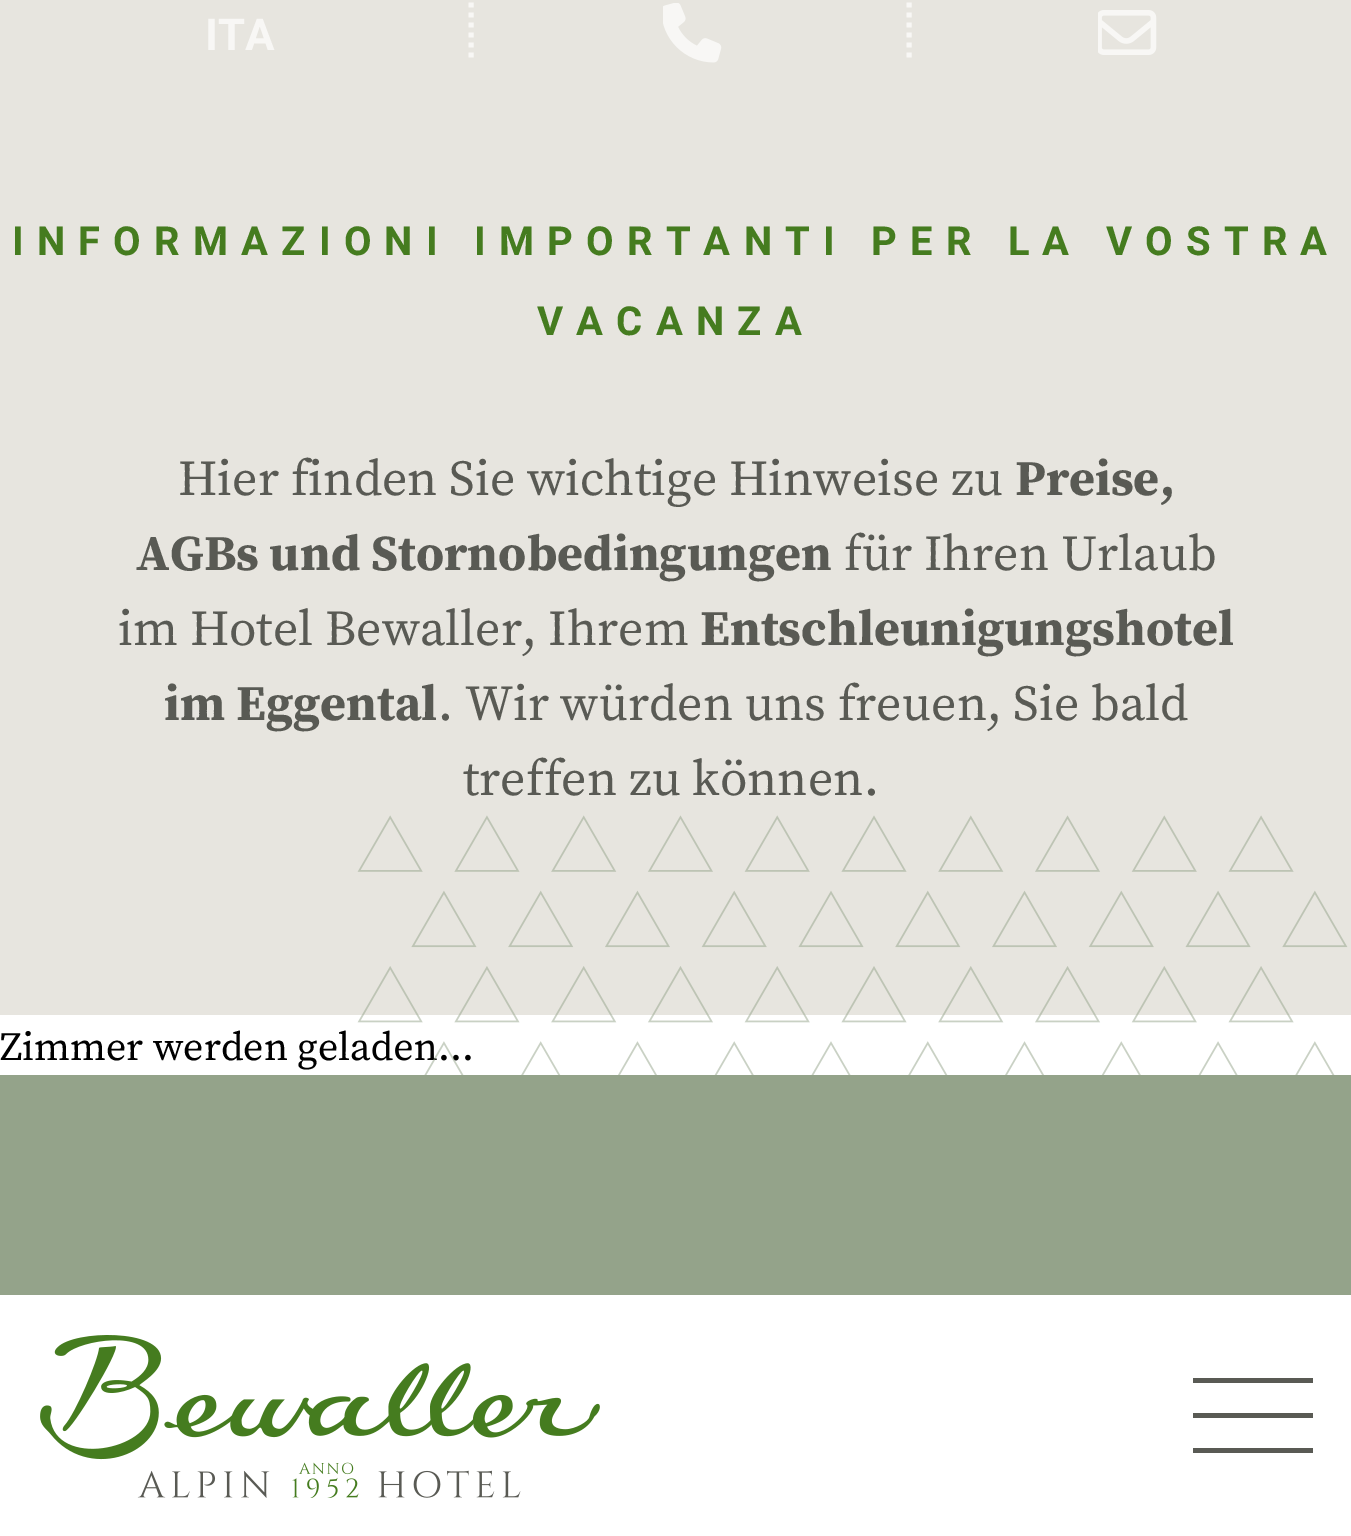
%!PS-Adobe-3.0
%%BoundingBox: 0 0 1351 1536
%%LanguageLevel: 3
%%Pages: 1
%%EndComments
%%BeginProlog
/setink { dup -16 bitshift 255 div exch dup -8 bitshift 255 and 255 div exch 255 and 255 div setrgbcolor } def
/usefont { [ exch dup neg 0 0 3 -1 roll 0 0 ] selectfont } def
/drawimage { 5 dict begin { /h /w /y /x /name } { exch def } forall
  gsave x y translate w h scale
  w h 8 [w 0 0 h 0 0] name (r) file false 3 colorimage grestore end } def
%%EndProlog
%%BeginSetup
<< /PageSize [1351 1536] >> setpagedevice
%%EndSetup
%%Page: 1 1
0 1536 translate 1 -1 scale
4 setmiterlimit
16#FFFFFF setink
0 0 1351 1536 rectfill
16#E7E5DF setink
0 0 1351 1015 rectfill
/Roboto-Bold 44 usefont
16#F8F7F5 setink
205 50 moveto (ITA) show
5 setlinewidth
[5 5] 0 setdash
471 2.5 moveto 471 62.5 lineto stroke
(img1.raw) 663 3 59 60 drawimage
909 2.5 moveto 909 62.5 lineto stroke
(img2.raw) 1098 10 59 45 drawimage
/Roboto-Bold 40 usefont
16#457C1F setink
12 255 moveto 13.2 0 (INFORMAZIONI IMPORTANTI PER LA VOSTRA) ashow
537 335 moveto 13.2 0 (VACANZA) ashow
/SourceSerifPro-Regular 50 usefont
16#595A54 setink
178 495 moveto (Hier finden Sie wichtige Hinweise zu) show
/SourceSerifPro-Bold 50 usefont
1015 495 moveto (Preise,) show
136 570 moveto (AGBs und Stornobedingungen) show
/SourceSerifPro-Regular 50 usefont
844 570 moveto (für Ihren Urlaub) show
118 645 moveto (im Hotel Bewaller, Ihrem) show
/SourceSerifPro-Bold 50 usefont
700 645 moveto (Entschleunigungshotel) show
164 720 moveto (im Eggental) show
/SourceSerifPro-Regular 50 usefont
438 720 moveto (. Wir würden uns freuen, Sie bald) show
463 795 moveto (treffen zu können.) show
/SourceSerifPro-Regular 40 usefont
16#000000 setink
0 1060 moveto (Zimmer werden geladen...) show
(img3.raw) 357 815 991 260 drawimage
16#94A38A setink
0 1075 1351 220 rectfill
(img4.raw) 40 1335 560 163 drawimage
[
    [1193 1378 120 5 16#595A54]
    [1193 1413 120 5 16#595A54]
    [1193 1448 120 5 16#595A54]
] { aload pop setink rectfill } forall
showpage
%%EOF
